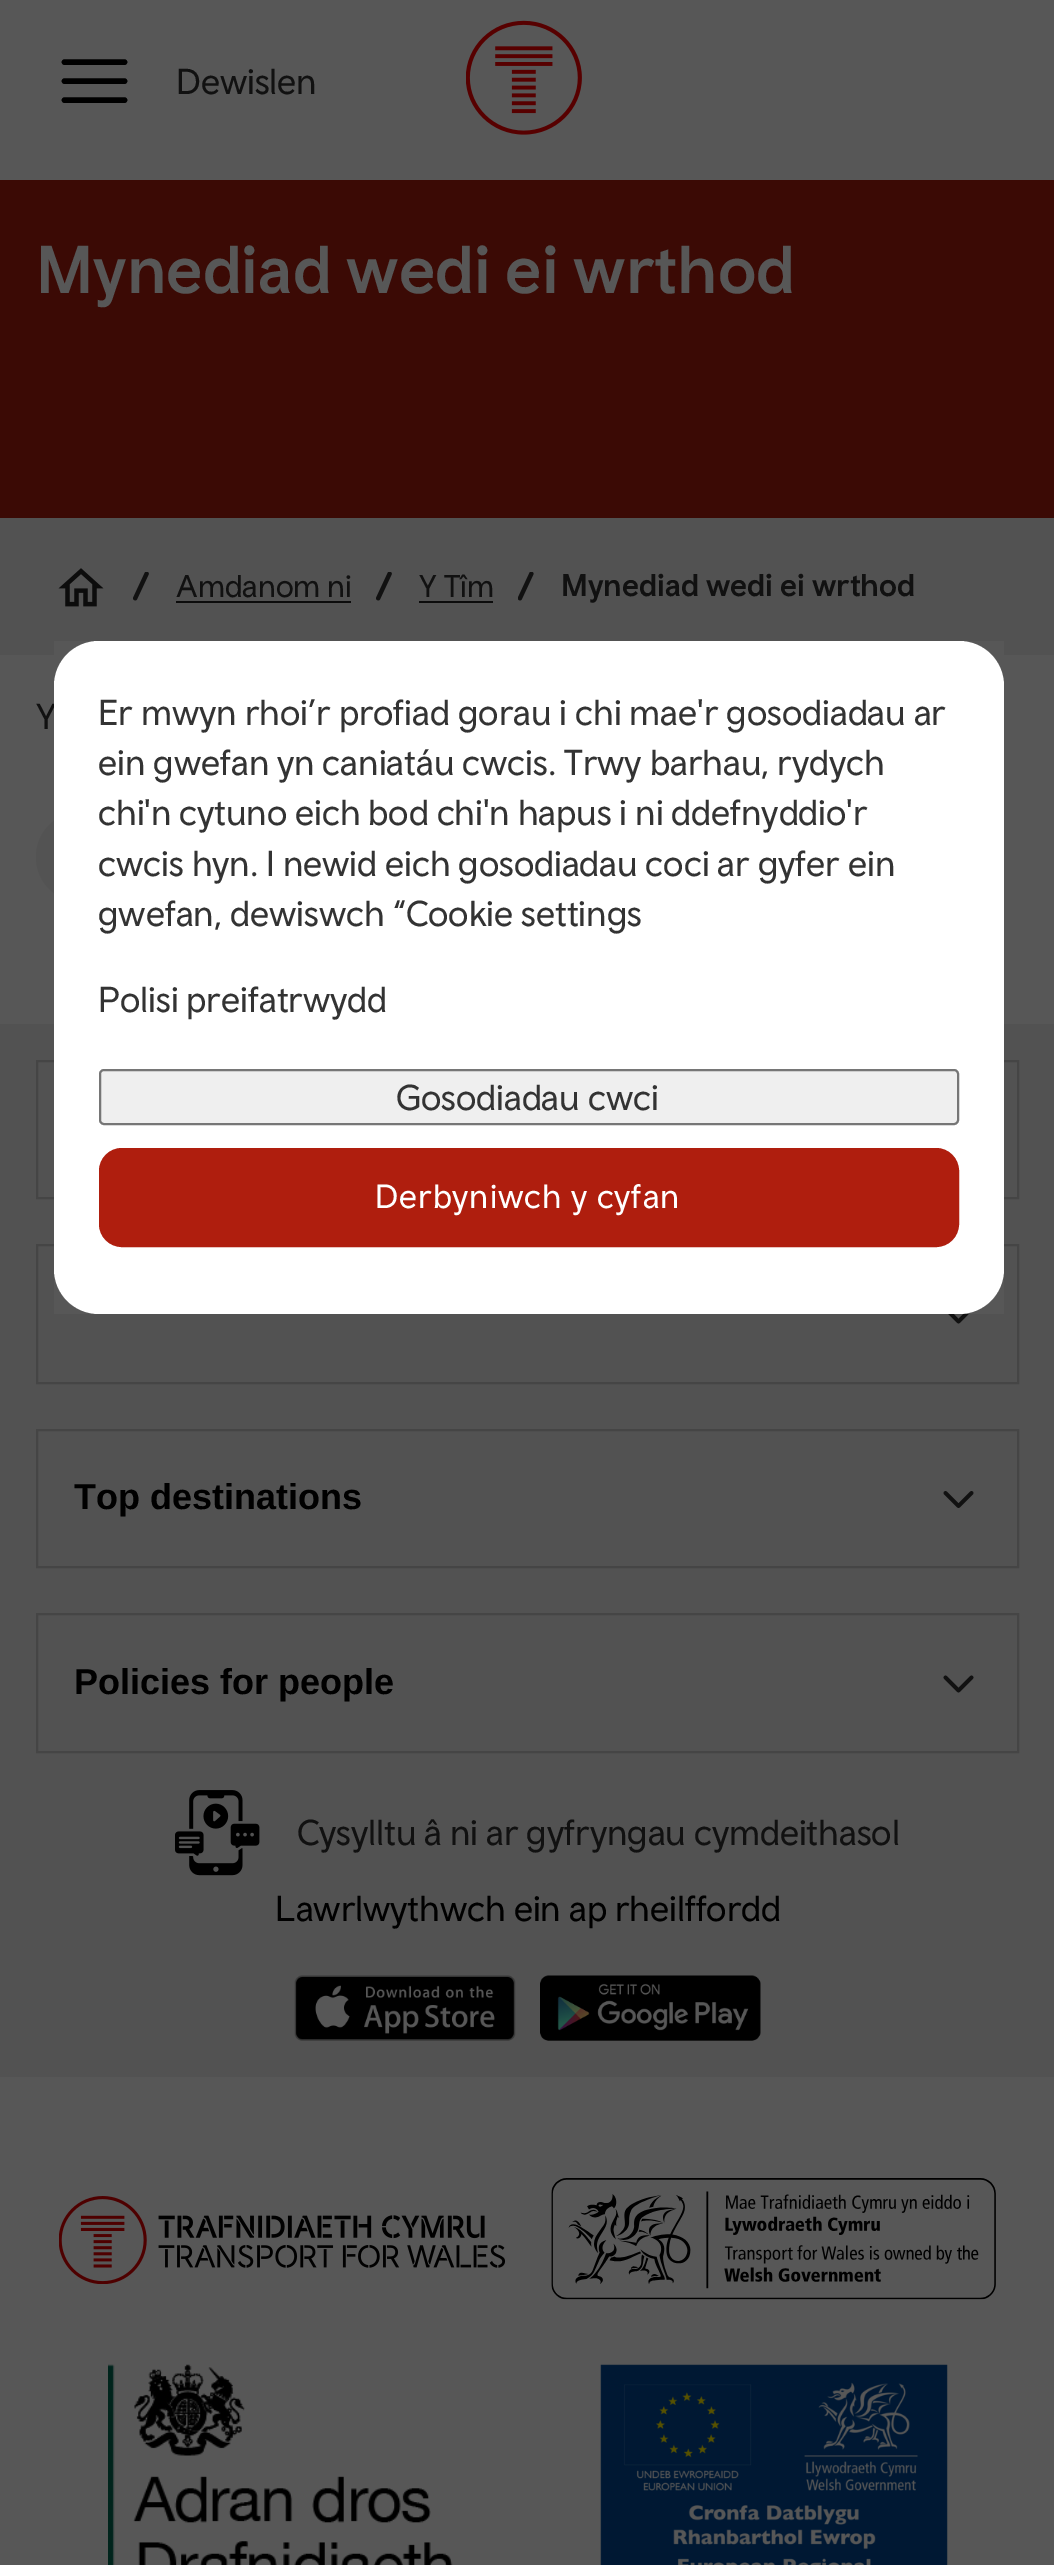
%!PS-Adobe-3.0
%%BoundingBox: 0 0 1054 2565
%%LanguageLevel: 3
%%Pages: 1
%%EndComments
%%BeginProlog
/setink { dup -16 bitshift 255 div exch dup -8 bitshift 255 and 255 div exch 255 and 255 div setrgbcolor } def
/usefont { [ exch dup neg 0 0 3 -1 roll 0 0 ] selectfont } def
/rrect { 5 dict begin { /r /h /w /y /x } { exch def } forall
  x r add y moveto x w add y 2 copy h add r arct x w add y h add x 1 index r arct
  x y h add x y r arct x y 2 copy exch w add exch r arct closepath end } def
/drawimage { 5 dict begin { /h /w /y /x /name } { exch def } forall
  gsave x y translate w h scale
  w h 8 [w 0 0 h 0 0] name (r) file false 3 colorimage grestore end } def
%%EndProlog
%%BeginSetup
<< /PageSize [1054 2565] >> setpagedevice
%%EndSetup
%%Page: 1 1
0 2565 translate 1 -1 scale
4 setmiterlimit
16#575757 setink
0 0 1054 2565 rectfill
16#000000 setink
5.6 setlinewidth
1 setlinecap
124.5 62 moveto 64.5 62 lineto stroke
124.5 81 moveto 64.5 81 lineto stroke
124.5 100 moveto 64.5 100 lineto stroke
/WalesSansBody-Regular 36 usefont
16#111111 setink
176 94 moveto (Dewislen) show
(img1.raw) 466 20 116 115 drawimage
16#3B0A05 setink
0 180 1054 338 rectfill
/WalesSansBody-Medium 67.5 usefont
16#575757 setink
36 293 moveto (Mynediad wedi ei wrthod) show
16#525252 setink
0 518 1054 137 rectfill
(img2.raw) 58 568 46 39 drawimage
(img3.raw) 133 572 16 29 drawimage
/WalesSansBody-Regular 31.5 usefont
16#111111 setink
176 597 moveto (Amdanom ni) show
16#0C0C0C setink
176 601 175 2 rectfill
(img3.raw) 376 572 16 29 drawimage
16#111111 setink
419 597 moveto (Y Tîm) show
16#0C0C0C setink
419 601 74 2 rectfill
(img4.raw) 518 572 16 29 drawimage
/WalesSansBody-Medium 31.5 usefont
16#111111 setink
561 596 moveto (Mynediad wedi ei wrthod) show
/WalesSansBody-Regular 36 usefont
36 729 moveto (Y) show
16#535353 setink
36 857 moveto 36 832 56 812 81 812 curveto 106 812 126 832 126 857 curveto 126 882 106 902 81 902 curveto 56 902 36 882 36 857 curveto closepath fill
16#525252 setink
0 1024 1054 1053 rectfill
16#454545 setink
2 setlinewidth
0 setlinecap
37 1061 981 137 rectstroke
37 1245 981 138 rectstroke
16#111111 setink
3.8 setlinewidth
1 setlinecap
1 setlinejoin
971.5 1308.5 moveto 958.5 1321.5 lineto 945.5 1308.5 lineto stroke
16#575757 setink
54 641 950 673 rectfill
16#FFFFFF setink
99 641 moveto 959 641 lineto 984 641 1004 661 1004 686 curveto 1004 1069 lineto 54 1069 lineto 54 686 lineto 54 661 74 641 99 641 curveto closepath fill
16#333333 setink
[
    [(Er mwyn rhoi’r profiad gorau i chi mae'r gosodiadau ar) 98 725]
    [(ein gwefan yn caniatáu cwcis. Trwy barhau, rydych) 98 775]
    [(chi'n cytuno eich bod chi'n hapus i ni ddefnyddio'r) 98 825]
    [(cwcis hyn. I newid eich gosodiadau coci ar gyfer ein) 98 876]
    [(gwefan, dewiswch “Cookie settings) 98 926]
    [(Polisi preifatrwydd) 98 1012]
] { aload pop moveto show } forall
16#FFFFFF setink
54 1069 moveto 1004 1069 lineto 1004 1269 lineto 1004 1294 984 1314 959 1314 curveto 99 1314 lineto 74 1314 54 1294 54 1269 curveto closepath fill
16#EFEFEF setink
100 1070 858 54 4 rrect gsave fill grestore
16#767676 setink
2 setlinewidth
0 setlinecap
0 setlinejoin
stroke
16#333333 setink
396 1110 moveto (Gosodiadau cwci) show
16#AF1E0E setink
100 1149 858 97 22 rrect gsave fill grestore
stroke
/WalesSansBody-Regular 33.75 usefont
16#FFFFFF setink
375 1208 moveto 1 0 (Derbyniwch y cyfan) ashow
16#454545 setink
37 1430 981 137 rectstroke
/LiberationSans-Bold 36 usefont
16#000000 setink
74 1509 moveto (Top destinations) show
16#111111 setink
3.8 setlinewidth
1 setlinecap
1 setlinejoin
971.5 1493 moveto 958.5 1506 lineto 945.5 1493 lineto stroke
16#454545 setink
2 setlinewidth
0 setlinecap
0 setlinejoin
37 1614 981 138 rectstroke
16#000000 setink
74 1694 moveto (Policies for people) show
16#111111 setink
3.8 setlinewidth
1 setlinecap
1 setlinejoin
971.5 1677.5 moveto 958.5 1690.5 lineto 945.5 1677.5 lineto stroke
(img5.raw) 175 1790 85 86 drawimage
/WalesSansBody-Regular 36 usefont
297 1845 moveto (Cysylltu â ni ar gyfryngau cymdeithasol) show
16#000000 setink
275 1921 moveto (Lawrlwythwch ein ap rheilffordd) show
(img6.raw) 294 1975 222 66 drawimage
(img7.raw) 540 1975 221 66 drawimage
(img8.raw) 59 2196 447 88 drawimage
(img9.raw) 551 2178 445 122 drawimage
(img10.raw) 108 2364 345 201 drawimage
(img11.raw) 600 2364 348 201 drawimage
showpage
%%EOF
